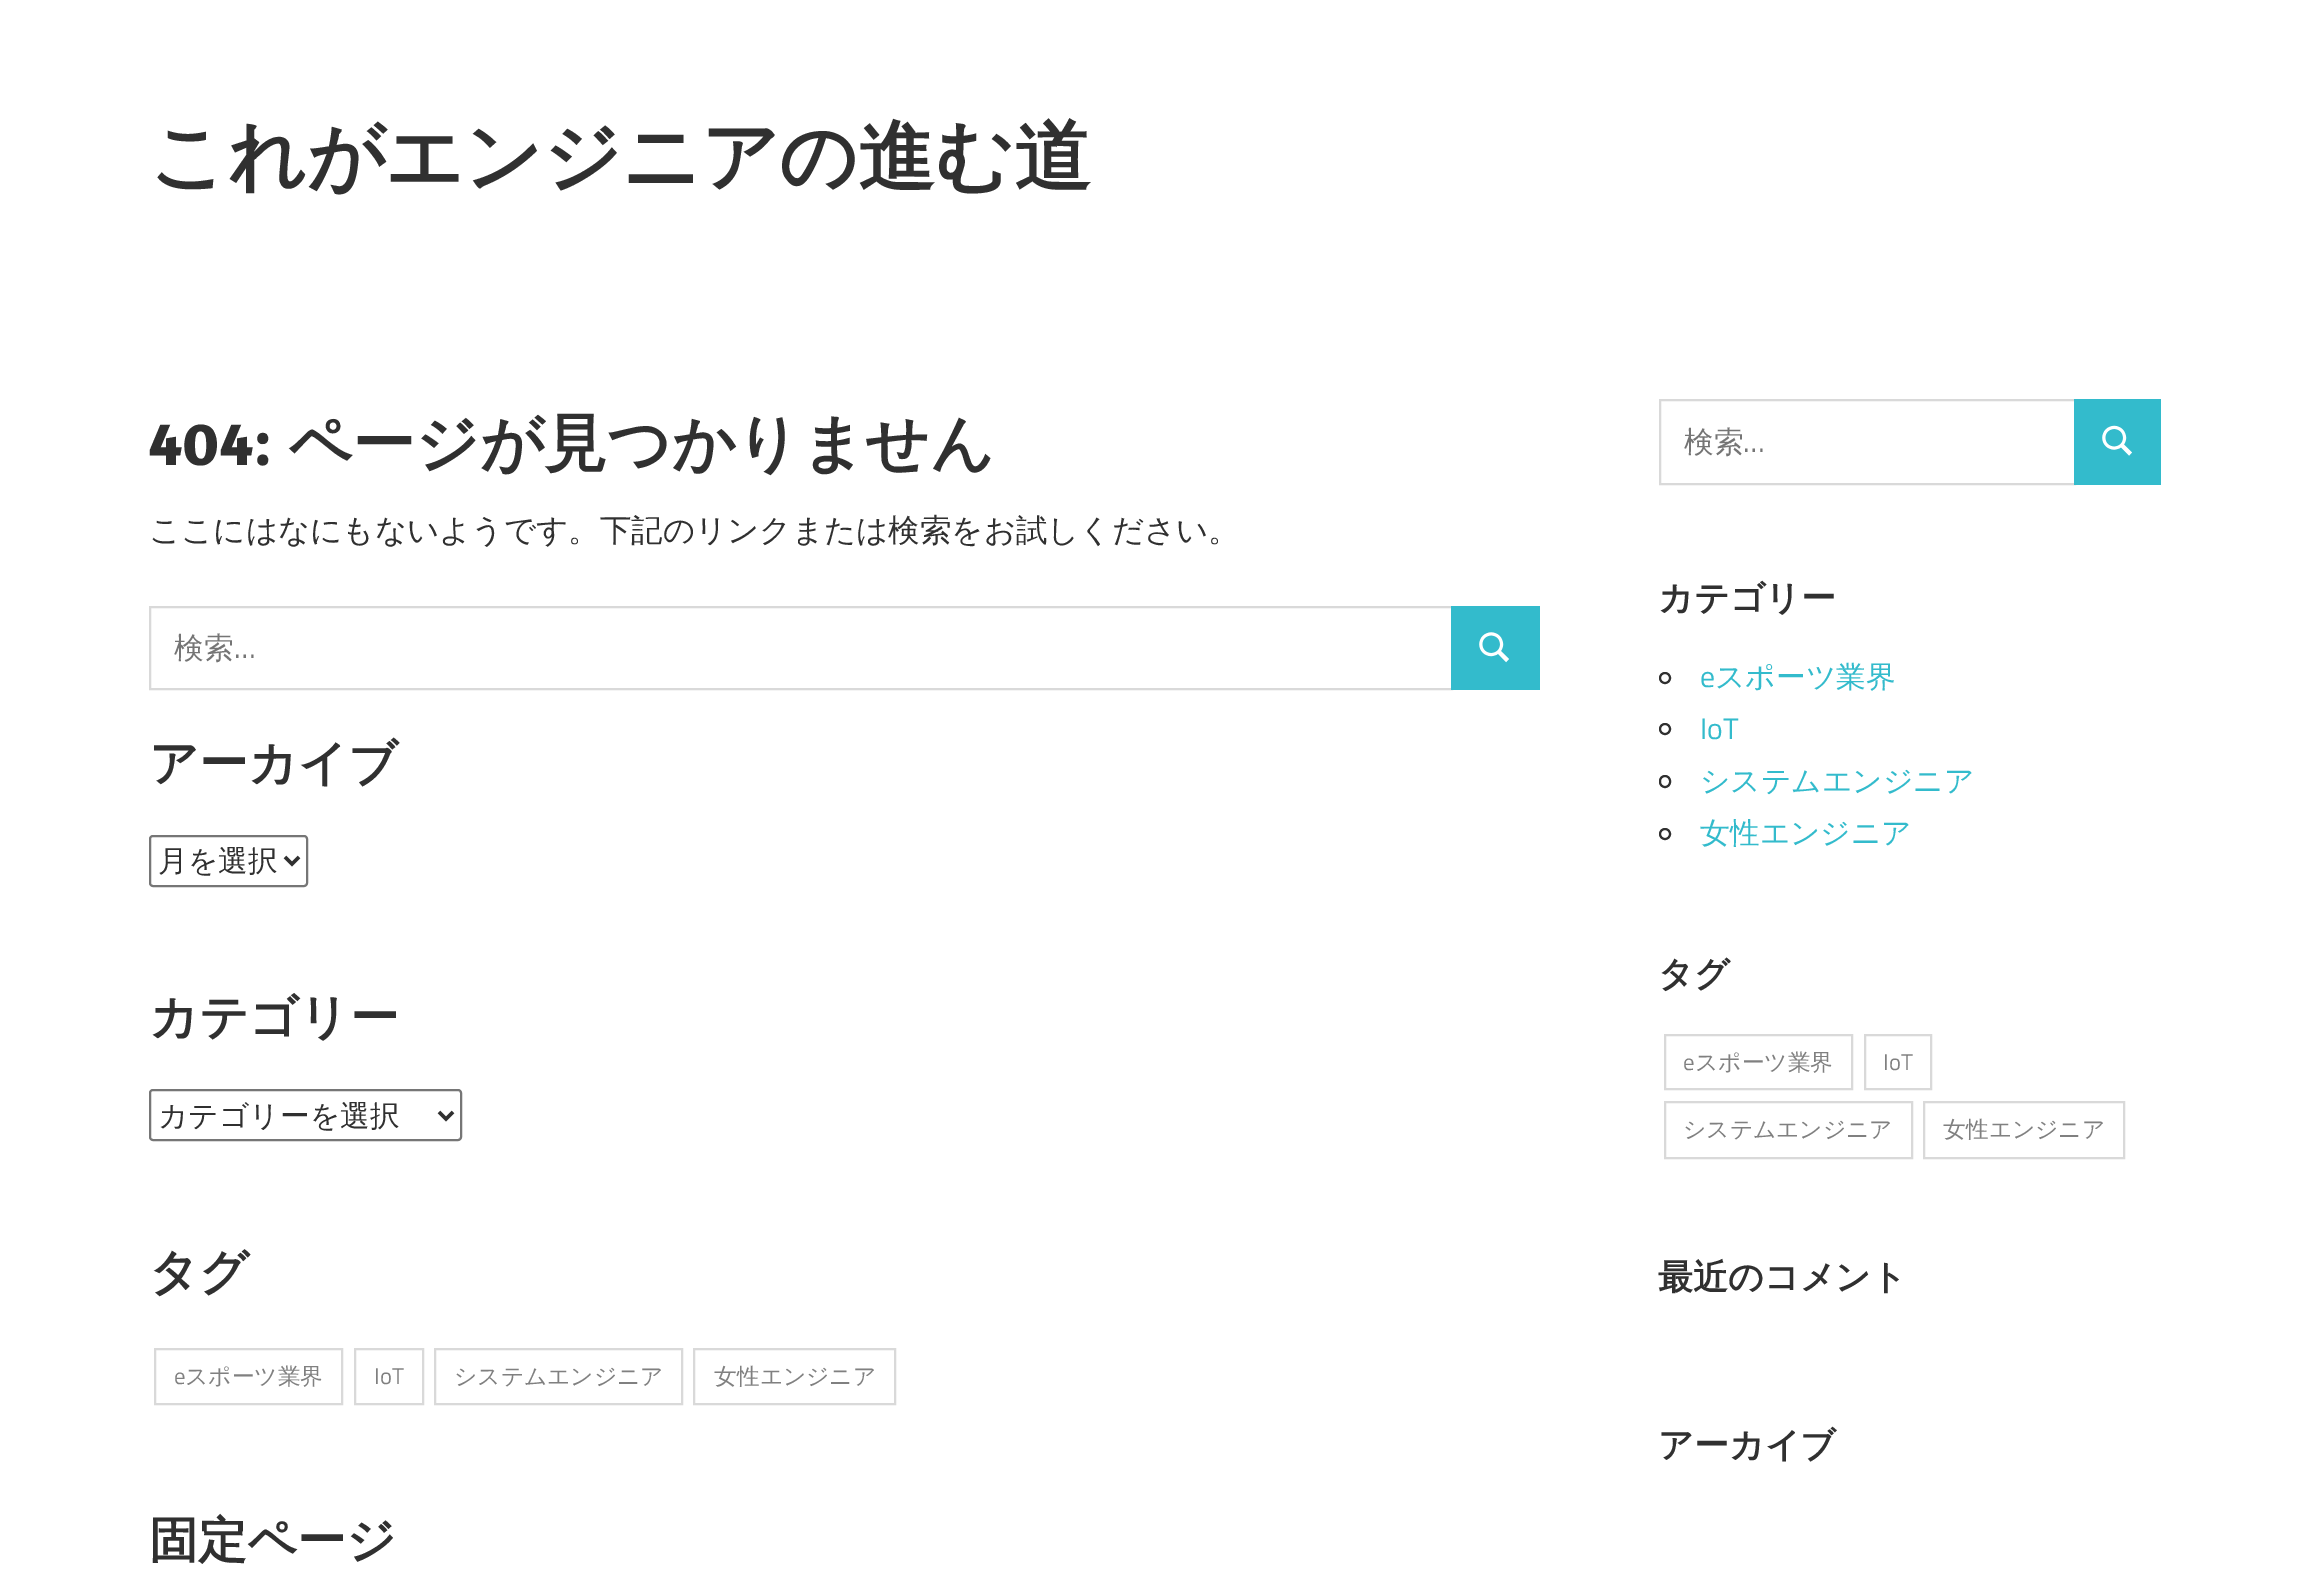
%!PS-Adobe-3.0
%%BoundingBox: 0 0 2310 1589
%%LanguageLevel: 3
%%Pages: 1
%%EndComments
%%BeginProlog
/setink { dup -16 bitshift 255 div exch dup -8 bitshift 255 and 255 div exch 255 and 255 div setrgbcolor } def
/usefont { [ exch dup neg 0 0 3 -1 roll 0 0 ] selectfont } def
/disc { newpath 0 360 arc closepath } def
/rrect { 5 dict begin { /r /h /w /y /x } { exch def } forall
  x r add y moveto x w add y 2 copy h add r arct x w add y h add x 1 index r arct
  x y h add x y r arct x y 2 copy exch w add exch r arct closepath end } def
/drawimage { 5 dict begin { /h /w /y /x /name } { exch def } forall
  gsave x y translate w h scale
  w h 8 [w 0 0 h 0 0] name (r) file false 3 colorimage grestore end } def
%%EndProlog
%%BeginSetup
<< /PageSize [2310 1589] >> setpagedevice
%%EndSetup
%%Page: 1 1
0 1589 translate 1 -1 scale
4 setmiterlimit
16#FFFFFF setink
0 0 2310 1589 rectfill
/WenQuanYiZenHei-Bold 77 usefont
16#303030 setink
149 183 moveto (これがエンジニアの進む道) show
/Amaranth-Bold 63 usefont
149 465 moveto (404:) show
/WenQuanYiZenHei-Bold 63 usefont
288 465 moveto (ページが見つかりません) show
/WenQuanYiZenHei-Medium 31.5 usefont
149 541 moveto (ここにはなにもないようです。下記のリンクまたは検索をお試しください。) show
16#D9D9D9 setink
2 setlinewidth
150 607 1302 82 rectstroke
/WenQuanYiZenHei-Medium 29.75 usefont
16#757575 setink
174 658 moveto (検索) show
/TitilliumWeb-Regular 29.75 usefont
234 658 moveto (…) show
16#33BBCC setink
1451 606 89 84 rectfill
(img1.raw) 1479 632 30 31 drawimage
/WenQuanYiZenHei-Bold 49 usefont
16#303030 setink
149 780 moveto (アーカイブ) show
16#767676 setink
150 836 157 50 3 rrect stroke
16#303030 setink
3.5 setlinewidth
285 857 moveto 292 864 lineto 299 857 lineto stroke
/WenQuanYiZenHei-Medium 29.75 usefont
158 871 moveto (月を選択) show
/WenQuanYiZenHei-Bold 49 usefont
149 1034 moveto (カテゴリー) show
16#767676 setink
2 setlinewidth
150 1090 311 50 3 rrect stroke
16#303030 setink
3.5 setlinewidth
439 1112 moveto 446 1119 lineto 453 1112 lineto stroke
/WenQuanYiZenHei-Medium 29.75 usefont
158 1126 moveto (カテゴリーを選択) show
/WenQuanYiZenHei-Bold 49 usefont
149 1289 moveto (タグ) show
16#D9D9D9 setink
2 setlinewidth
155 1349 187 55 rectstroke
/TitilliumWeb-Regular 22.75 usefont
16#808080 setink
174 1384 moveto (e) show
/WenQuanYiZenHei-Medium 22.75 usefont
185 1384 moveto (スポーツ業界) show
16#D9D9D9 setink
355 1349 68 55 rectstroke
/TitilliumWeb-Regular 22.75 usefont
16#808080 setink
374 1384 moveto (IoT) show
16#D9D9D9 setink
435 1349 247 55 rectstroke
/WenQuanYiZenHei-Medium 22.75 usefont
16#808080 setink
454 1384 moveto (システムエンジニア) show
16#D9D9D9 setink
694 1349 201 55 rectstroke
16#808080 setink
714 1384 moveto (女性エンジニア) show
/WenQuanYiZenHei-Bold 49 usefont
16#303030 setink
149 1557 moveto (固定ページ) show
16#D9D9D9 setink
1660 400 415 84 rectstroke
/WenQuanYiZenHei-Medium 29.75 usefont
16#757575 setink
1684 452 moveto (検索) show
/TitilliumWeb-Regular 29.75 usefont
1743 452 moveto (…) show
16#33BBCC setink
2074 399 87 86 rectfill
(img2.raw) 2102 425 30 31 drawimage
/WenQuanYiZenHei-Bold 35 usefont
16#303030 setink
1658 610 moveto (カテゴリー) show
1665 678 5 disc stroke
/TitilliumWeb-Regular 29.75 usefont
16#33BBCC setink
1700 687 moveto (e) show
/WenQuanYiZenHei-Medium 29.75 usefont
1715 687 moveto (スポーツ業界) show
16#303030 setink
1665 729 5 disc stroke
/TitilliumWeb-Regular 29.75 usefont
16#33BBCC setink
1700 739 moveto (IoT) show
16#303030 setink
1660 776 10 11 5 rrect stroke
/WenQuanYiZenHei-Medium 29.75 usefont
16#33BBCC setink
1700 791 moveto (システムエンジニア) show
16#303030 setink
1665 834 5 disc stroke
16#33BBCC setink
1700 843 moveto (女性エンジニア) show
/WenQuanYiZenHei-Bold 35 usefont
16#303030 setink
1658 986 moveto (タグ) show
16#D9D9D9 setink
1665 1035 187 54 rectstroke
/TitilliumWeb-Regular 22.75 usefont
16#808080 setink
1683 1070 moveto (e) show
/WenQuanYiZenHei-Medium 22.75 usefont
1695 1070 moveto (スポーツ業界) show
16#D9D9D9 setink
1865 1035 66 54 rectstroke
/TitilliumWeb-Regular 22.75 usefont
16#808080 setink
1883 1070 moveto (IoT) show
16#D9D9D9 setink
1665 1102 247 56 rectstroke
/WenQuanYiZenHei-Medium 22.75 usefont
16#808080 setink
1683 1137 moveto (システムエンジニア) show
16#D9D9D9 setink
1924 1102 200 56 rectstroke
16#808080 setink
1943 1137 moveto (女性エンジニア) show
/WenQuanYiZenHei-Bold 35 usefont
16#303030 setink
1658 1289 moveto (最近のコメント) show
1658 1457 moveto (アーカイブ) show
showpage
%%EOF
